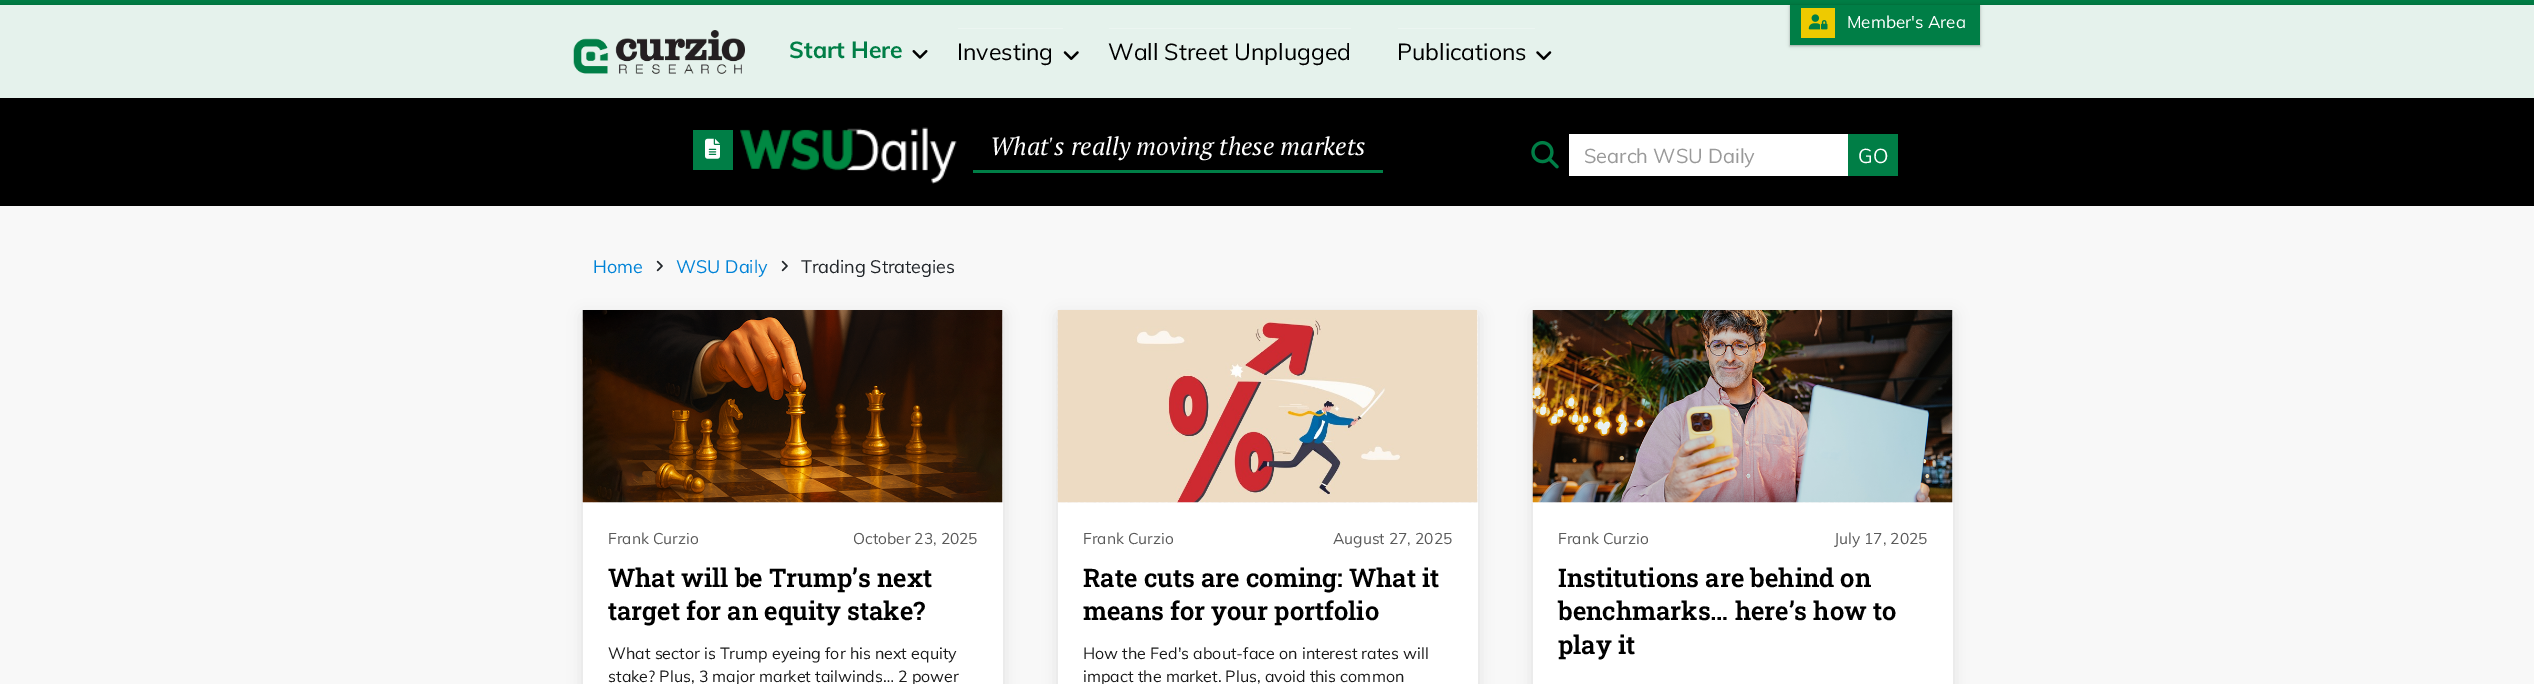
%!PS-Adobe-3.0
%%BoundingBox: 0 0 2534 684
%%LanguageLevel: 3
%%Pages: 1
%%EndComments
%%BeginProlog
/setink { dup -16 bitshift 255 div exch dup -8 bitshift 255 and 255 div exch 255 and 255 div setrgbcolor } def
/usefont { [ exch dup neg 0 0 3 -1 roll 0 0 ] selectfont } def
/setalpha { dup .setfillconstantalpha .setstrokeconstantalpha } def
/rrect { 5 dict begin { /r /h /w /y /x } { exch def } forall
  x r add y moveto x w add y 2 copy h add r arct x w add y h add x 1 index r arct
  x y h add x y r arct x y 2 copy exch w add exch r arct closepath end } def
/softshadow { 12 dict begin { /a /b /q /h /w /y /x } { exch def } forall gsave /was 0 def
  9 -2 -9 { dup b mul 4 div /e exch def 1 sub .425 mul 2.718 exch exp 1 add a .99 .min exch div /now exch def
    1 1 now sub 1 was sub div sub setalpha /was now def
    w h .min e 2 mul add 0 gt { x e sub y e sub w e 2 mul add h e 2 mul add
      q e add b .6 mul add w h .min 2 div e add .min 0 .max rrect fill } if } for grestore end } def
/drawimage { 5 dict begin { /h /w /y /x /name } { exch def } forall
  gsave x y translate w h scale
  w h 8 [w 0 0 h 0 0] name (r) file false 3 colorimage grestore end } def
%%EndProlog
%%BeginSetup
<< /PageSize [2534 684] /PageUsesTransparency true >> setpagedevice
%%EndSetup
%%Page: 1 1
0 .pushpdf14devicefilter
0 684 translate 1 -1 scale
4 setmiterlimit
16#F8F8F8 setink
0 0 2534 684 rectfill
16#007E46 setink
0 0 2534 5 rectfill
16#000000 setink
0 98 2534 108 rectfill
0 6 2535 93 0 3 0.25 softshadow
16#E5F2EC setink
0 5 2534 93 rectfill
16#000000 setink
1790 6 190 40 0 1 0.24 softshadow
1790 6 190 40 0 2 0.12 softshadow
16#007E46 setink
1790 5 190 40 rectfill
16#EECA00 setink
1801 8 34 30 rectfill
(img1.raw) 1808 14 20 16 drawimage
/Muli-Regular 17 usefont
16#FFFFFF setink
1847 28 moveto (Member's Area) show
(img2.raw) 573 30 172 44 drawimage
/Muli-Bold 23 usefont
16#007E46 setink
789 58 moveto (Start Here) show
(img3.raw) 912 50 16 9 drawimage
16#ECF5F1 setink
958 28 105 1 rectfill
/Muli-Regular 23 usefont
16#000000 setink
957 60 moveto (Investing) show
(img4.raw) 1063 51 16 9 drawimage
16#ECF5F1 setink
1109 28 242 1 rectfill
16#000000 setink
1108 60 moveto (Wall Street Unplugged) show
16#ECF5F1 setink
1398 28 137 1 rectfill
16#000000 setink
1397 60 moveto (Publications) show
(img5.raw) 1536 51 16 9 drawimage
16#007E46 setink
693 130 40 40 rectfill
(img6.raw) 705 138 15 21 drawimage
(img7.raw) 740 127 217 57 drawimage
/PTSerif-Italic 25 usefont
16#FFFFFF setink
990 155 moveto (What's really moving these markets) show
16#007E46 setink
973 170 410 3 rectfill
(img8.raw) 1531 140 28 29 drawimage
16#FFFFFF setink
1569 134 279 42 rectfill
/Muli-Regular 20 usefont
16#999999 setink
1584 163 moveto (Search WSU Daily) show
16#007E46 setink
1848 134 50 42 rectfill
16#FFFFFF setink
1858 163 moveto (GO) show
/Muli-Regular 18 usefont
16#0183D7 setink
593 273 moveto (Home) show
(img9.raw) 656 260 7 12 drawimage
676 273 moveto (WSU Daily) show
(img9.raw) 781 260 7 12 drawimage
16#212529 setink
801 273 moveto (Trading Strategies) show
16#000000 setink
583 315 420 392 0 7.5 0.1 softshadow
16#FFFFFF setink
583 310 420 374 rectfill
(img10.raw) 582 310 421 193 drawimage
(img11.raw) 582 310 421 193 drawimage
/Muli-Regular 15.5 usefont
16#595959 setink
608 544 moveto (Frank Curzio) show
853 544 moveto (October 23, 2025) show
/RobotoSlab-SemiBold 25.5 usefont
16#000000 setink
608 587 moveto (What will be Trump’s next) show
608 620 moveto (target for an equity stake?) show
/Muli-Regular 16 usefont
16#1A1A1A setink
608 659 moveto (What sector is Trump eyeing for his next equity) show
608 682 moveto (stake? Plus, 3 major market tailwinds… 2 power) show
16#000000 setink
1058 315 420 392 0 7.5 0.1 softshadow
16#FFFFFF setink
1058 310 420 374 rectfill
(img12.raw) 1057 310 421 193 drawimage
(img13.raw) 1057 310 421 193 drawimage
/Muli-Regular 15.5 usefont
16#595959 setink
1083 544 moveto (Frank Curzio) show
1333 544 moveto (August 27, 2025) show
/RobotoSlab-SemiBold 25.5 usefont
16#000000 setink
1083 587 moveto (Rate cuts are coming: What it) show
1083 620 moveto (means for your portfolio) show
/Muli-Regular 16 usefont
16#1A1A1A setink
1083 659 moveto (How the Fed's about-face on interest rates will) show
1083 682 moveto (impact the market. Plus, avoid this common) show
16#000000 setink
1533 315 420 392 0 7.5 0.1 softshadow
16#FFFFFF setink
1533 310 420 374 rectfill
(img14.raw) 1532 310 421 193 drawimage
(img15.raw) 1532 310 421 193 drawimage
/Muli-Regular 15.5 usefont
16#595959 setink
1558 544 moveto (Frank Curzio) show
1834 544 moveto (July 17, 2025) show
/RobotoSlab-SemiBold 25.5 usefont
16#000000 setink
[
    [(Institutions are behind on) 1558 587]
    [(benchmarks… here’s how to) 1558 620]
    [(play it) 1558 654]
] { aload pop moveto show } forall
.poppdf14devicefilter showpage
%%EOF
